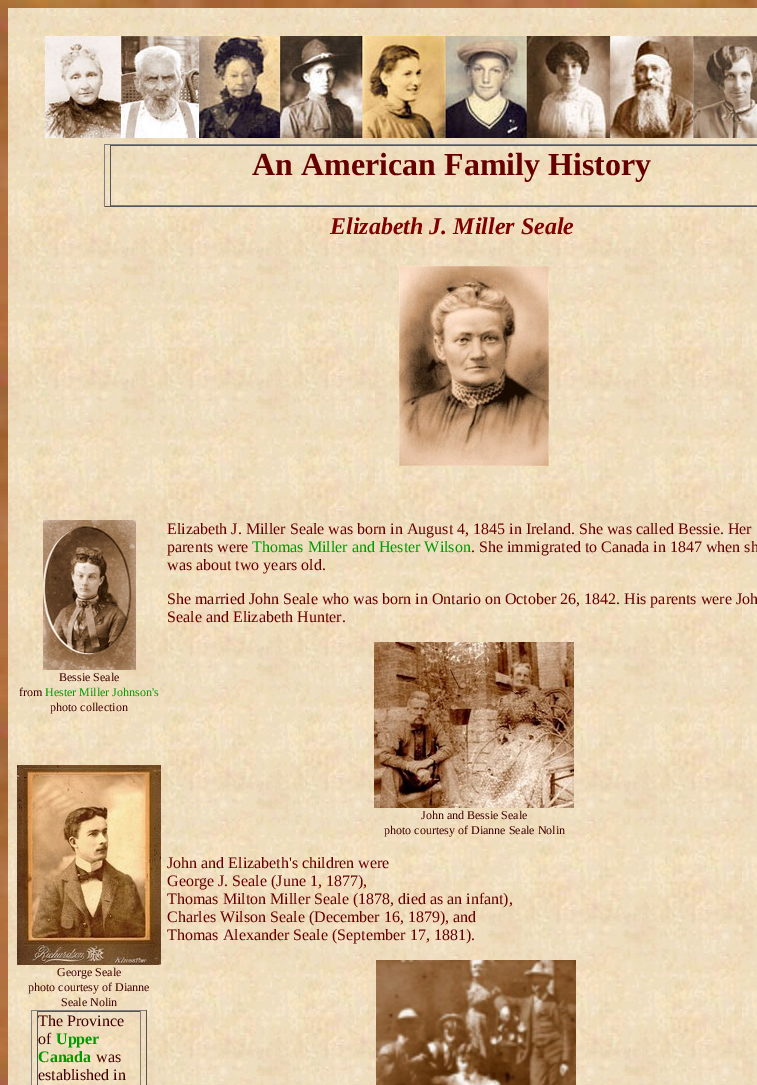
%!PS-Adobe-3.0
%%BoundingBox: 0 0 757 1085
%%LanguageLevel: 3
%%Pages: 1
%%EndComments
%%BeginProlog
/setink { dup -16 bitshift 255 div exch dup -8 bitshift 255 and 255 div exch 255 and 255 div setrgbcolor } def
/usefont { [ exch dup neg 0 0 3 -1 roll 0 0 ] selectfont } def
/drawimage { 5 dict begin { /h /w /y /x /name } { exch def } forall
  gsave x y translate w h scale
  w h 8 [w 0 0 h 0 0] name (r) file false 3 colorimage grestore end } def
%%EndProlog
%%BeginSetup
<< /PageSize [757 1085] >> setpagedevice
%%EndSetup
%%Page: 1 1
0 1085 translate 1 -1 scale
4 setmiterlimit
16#FFFFFF setink
0 0 757 1085 rectfill
(img1.raw) 0 0 757 1085 drawimage
(img2.raw) 8 8 749 1077 drawimage
(img3.raw) 45 36 712 102 drawimage
(img4.raw) 105 145 652 61 drawimage
[
    [104 144 653 1 16#808080]
    [104 206 653 1 16#555555]
    [104 144 1 63 16#808080]
    [110 145 647 1 16#555555]
    [110 205 647 1 16#808080]
    [110 145 1 61 16#555555]
] { aload pop setink rectfill } forall
/LiberationSerif-Bold 32 usefont
16#660000 setink
252 175 moveto (An American Family History) show
/LiberationSerif-BoldItalic 24 usefont
16#800000 setink
330 234 moveto (Elizabeth J. Miller Seale) show
(img5.raw) 399 266 150 200 drawimage
(img6.raw) 43 520 93 150 drawimage
/LiberationSerif-Regular 12 usefont
16#400000 setink
59 681 moveto (Bessie Seale) show
19 696 moveto (from) show
16#009900 setink
45 696 moveto (Hester Miller Johnson's) show
16#400000 setink
50 711 moveto (photo collection) show
(img7.raw) 17 765 144 200 drawimage
[
    [(George Seale) 57 976]
    [(photo courtesy of Dianne) 28 991]
    [(Seale Nolin) 61 1006]
] { aload pop moveto show } forall
(img8.raw) 32 1011 114 74 drawimage
[
    [31 1010 116 1 16#808080]
    [146 1010 1 75 16#555555]
    [31 1010 1 75 16#808080]
    [37 1011 104 1 16#555555]
    [140 1011 1 74 16#808080]
    [37 1011 1 74 16#555555]
] { aload pop setink rectfill } forall
/LiberationSerif-Regular 16 usefont
16#400000 setink
38 1026 moveto (The Province) show
38 1044 moveto (of) show
/LiberationSerif-Bold 16 usefont
16#009900 setink
56 1044 moveto (Upper) show
38 1062 moveto (Canada) show
/LiberationSerif-Regular 16 usefont
16#400000 setink
96 1062 moveto (was) show
38 1080 moveto (established in) show
16#660000 setink
167 534 moveto (Elizabeth J. Miller Seale was born in August 4, 1845 in Ireland. She was called Bessie. Her) show
167 552 moveto (parents were) show
16#009900 setink
252 552 moveto (Thomas Miller and Hester Wilson) show
16#660000 setink
[
    [(. She immigrated to Canada in 1847 when sh) 471 552]
    [(was about two years old.) 167 570]
    [(She married John Seale who was born in Ontario on October 26, 1842. His parents were Joh) 167 604]
    [(Seale and Elizabeth Hunter.) 167 622]
] { aload pop moveto show } forall
(img9.raw) 374 642 200 166 drawimage
/LiberationSerif-Regular 12 usefont
16#400000 setink
421 819 moveto (John and Bessie Seale) show
384 834 moveto (photo courtesy of Dianne Seale Nolin) show
/LiberationSerif-Regular 16 usefont
16#660000 setink
[
    [(John and Elizabeth's children were) 167 868]
    [(George J. Seale \(June 1, 1877\),) 167 886]
    [(Thomas Milton Miller Seale \(1878, died as an infant\),) 167 904]
    [(Charles Wilson Seale \(December 16, 1879\), and) 167 922]
    [(Thomas Alexander Seale \(September 17, 1881\).) 167 940]
] { aload pop moveto show } forall
(img10.raw) 376 960 200 125 drawimage
showpage
%%EOF
